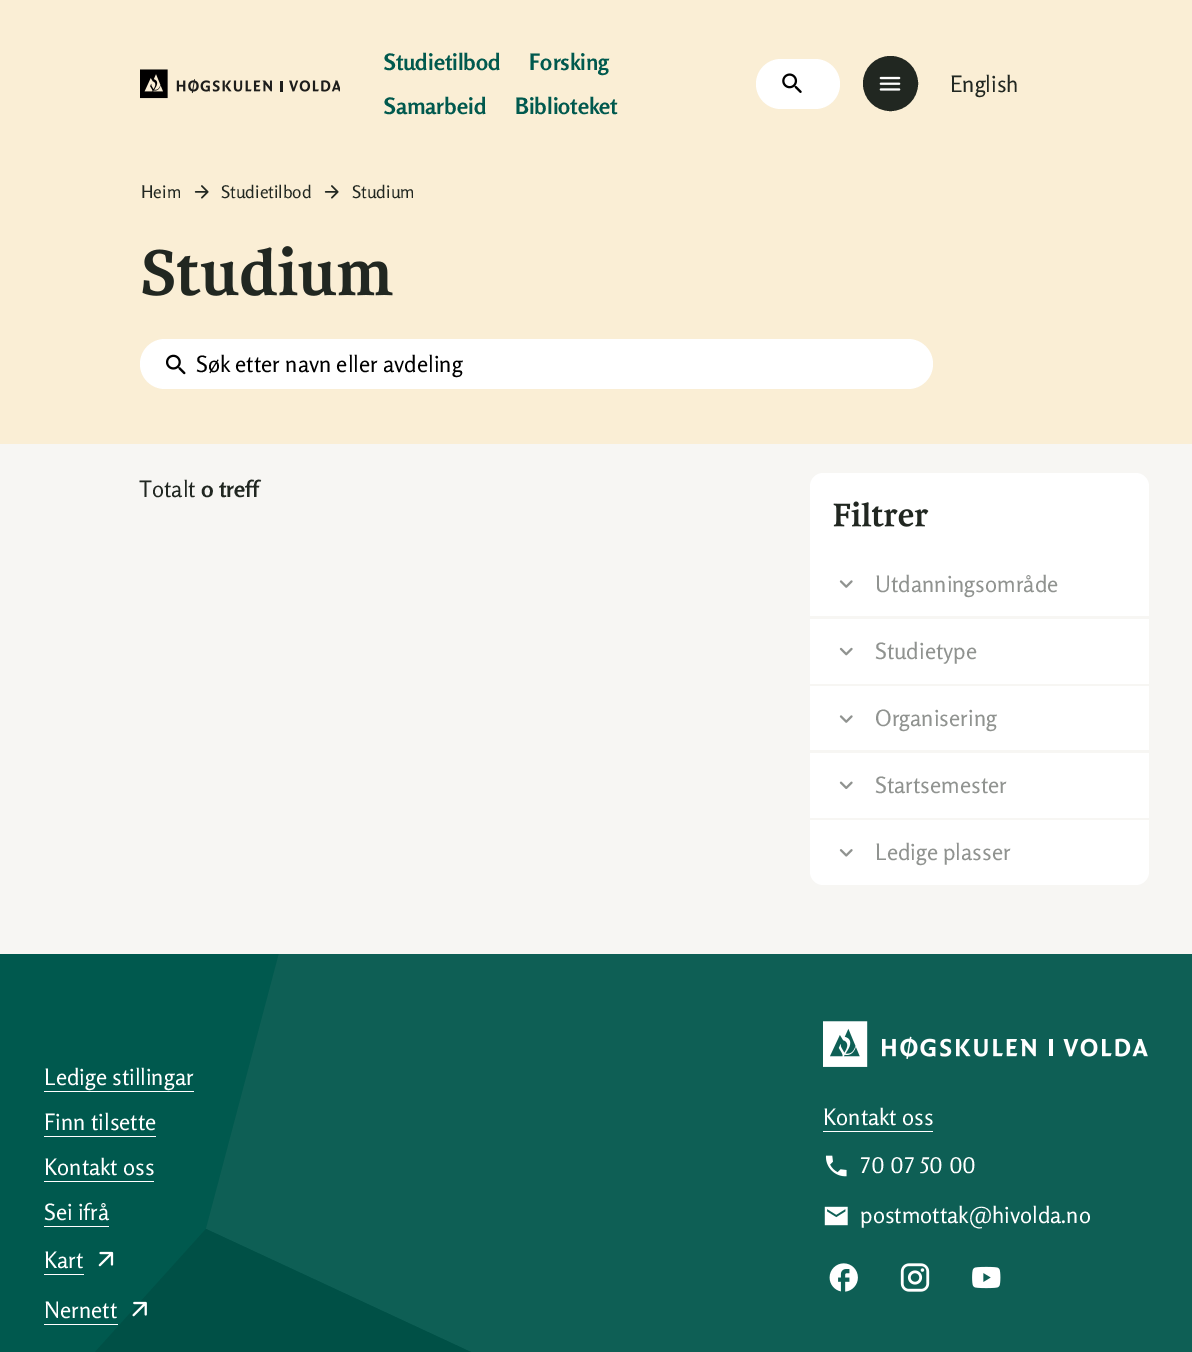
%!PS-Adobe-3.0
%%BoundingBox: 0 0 1192 1352
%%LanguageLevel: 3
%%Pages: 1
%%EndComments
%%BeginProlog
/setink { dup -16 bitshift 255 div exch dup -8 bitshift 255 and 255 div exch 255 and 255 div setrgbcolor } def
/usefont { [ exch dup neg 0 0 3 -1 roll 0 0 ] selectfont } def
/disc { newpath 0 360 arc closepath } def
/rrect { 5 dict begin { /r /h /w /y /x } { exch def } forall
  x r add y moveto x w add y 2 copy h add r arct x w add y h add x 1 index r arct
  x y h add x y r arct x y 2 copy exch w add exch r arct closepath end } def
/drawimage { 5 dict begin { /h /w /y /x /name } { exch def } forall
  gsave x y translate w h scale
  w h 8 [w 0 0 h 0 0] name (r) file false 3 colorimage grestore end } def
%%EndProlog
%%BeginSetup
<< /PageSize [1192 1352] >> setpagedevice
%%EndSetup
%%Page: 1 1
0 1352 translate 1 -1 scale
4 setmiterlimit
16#F7F6F3 setink
0 0 1192 1352 rectfill
16#FAEED5 setink
0 0 1192 444 rectfill
(img1.raw) 140 69 200 30 drawimage
/Rosario-Bold 22.5 usefont
16#00594E setink
[
    [(Studietilbod) 384 70]
    [(Forsking) 529 70]
    [(Samarbeid) 384 114]
    [(Biblioteket) 515 114]
] { aload pop moveto show } forall
16#FFFFFF setink
756 59 84 50 25 rrect fill
(img2.raw) 782 73 20 20 drawimage
16#212721 setink
890.5 83.5 26 disc gsave fill grestore
3 setlinewidth
stroke
(img3.raw) 879 76 22 15 drawimage
/Rosario-Regular 22.5 usefont
950 92 moveto (English) show
/Rosario-Regular 17.5 usefont
141 198 moveto (Heim) show
(img4.raw) 194 185 15 14 drawimage
221 198 moveto (Studietilbod) show
(img4.raw) 324 185 15 14 drawimage
352 198 moveto (Studium) show
16#FFFFFF setink
140 339 793 50 25 rrect fill
(img5.raw) 166 354 20 21 drawimage
(img6.raw) 142 246 251 50 drawimage
/Rosario-Regular 22.5 usefont
16#000000 setink
196 372 moveto (Søk etter navn eller avdeling) show
16#212721 setink
139 497 moveto (Totalt) show
/Rosario-Bold 22.5 usefont
201 497 moveto (0 treff) show
16#FFFFFF setink
823 473 moveto 1136 473 lineto 1143 473 1149 479 1149 486 curveto 1149 551 lineto 810 551 lineto 810 486 lineto 810 479 816 473 823 473 curveto closepath fill
(img7.raw) 833 501 96 26 drawimage
810 551 339 65 rectfill
(img8.raw) 839 580 14 8 drawimage
/Rosario-Regular 22.5 usefont
16#909390 setink
875 592 moveto (Utdanningsområde) show
16#FFFFFF setink
810 619 339 65 rectfill
(img9.raw) 839 647 14 9 drawimage
16#909390 setink
875 659 moveto (Studietype) show
16#FFFFFF setink
810 686 339 64 rectfill
(img8.raw) 839 715 14 8 drawimage
16#909390 setink
875 726 moveto (Organisering) show
16#FFFFFF setink
810 753 339 65 rectfill
(img10.raw) 839 781 14 8 drawimage
16#909390 setink
875 793 moveto (Startsemester) show
16#FFFFFF setink
810 820 moveto 1149 820 lineto 1149 872 lineto 1149 879 1143 885 1136 885 curveto 823 885 lineto 816 885 810 879 810 872 curveto closepath fill
(img11.raw) 839 849 14 8 drawimage
16#909390 setink
875 860 moveto (Ledige plasser) show
16#00594E setink
0 954 471 398 rectfill
gsave
0 954 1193 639 rectclip
16#0E5F55 setink
304 859 moveto 206 1229 lineto 1192 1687 lineto 1192 859 lineto closepath fill
grestore
16#005046 setink
206 1229 moveto -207 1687 lineto 1192 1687 lineto closepath fill
16#FFFFFF setink
44 1085 moveto (Ledige stillingar) show
44 1091 150 1 rectfill
44 1130 moveto (Finn tilsette) show
44 1136 112 1 rectfill
44 1175 moveto (Kontakt oss) show
44 1181 110 1 rectfill
44 1220 moveto (Sei ifrå) show
44 1226 65 1 rectfill
44 1268 moveto (Kart) show
44 1274 40 1 rectfill
(img12.raw) 98 1251 16 16 drawimage
44 1318 moveto (Nernett) show
44 1324 74 1 rectfill
(img13.raw) 132 1301 15 16 drawimage
(img14.raw) 823 1021 325 46 drawimage
823 1125 moveto (Kontakt oss) show
823 1131 110 1 rectfill
(img15.raw) 825 1155 22 22 drawimage
/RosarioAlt-Regular 22.5 usefont
860 1173 moveto (70 07 50 00) show
(img16.raw) 824 1206 24 20 drawimage
/Rosario-Regular 22.5 usefont
860 1223 moveto (postmottak@hivolda.no) show
(img17.raw) 829 1263 29 29 drawimage
(img18.raw) 900 1263 30 29 drawimage
(img19.raw) 972 1266 29 23 drawimage
showpage
%%EOF
